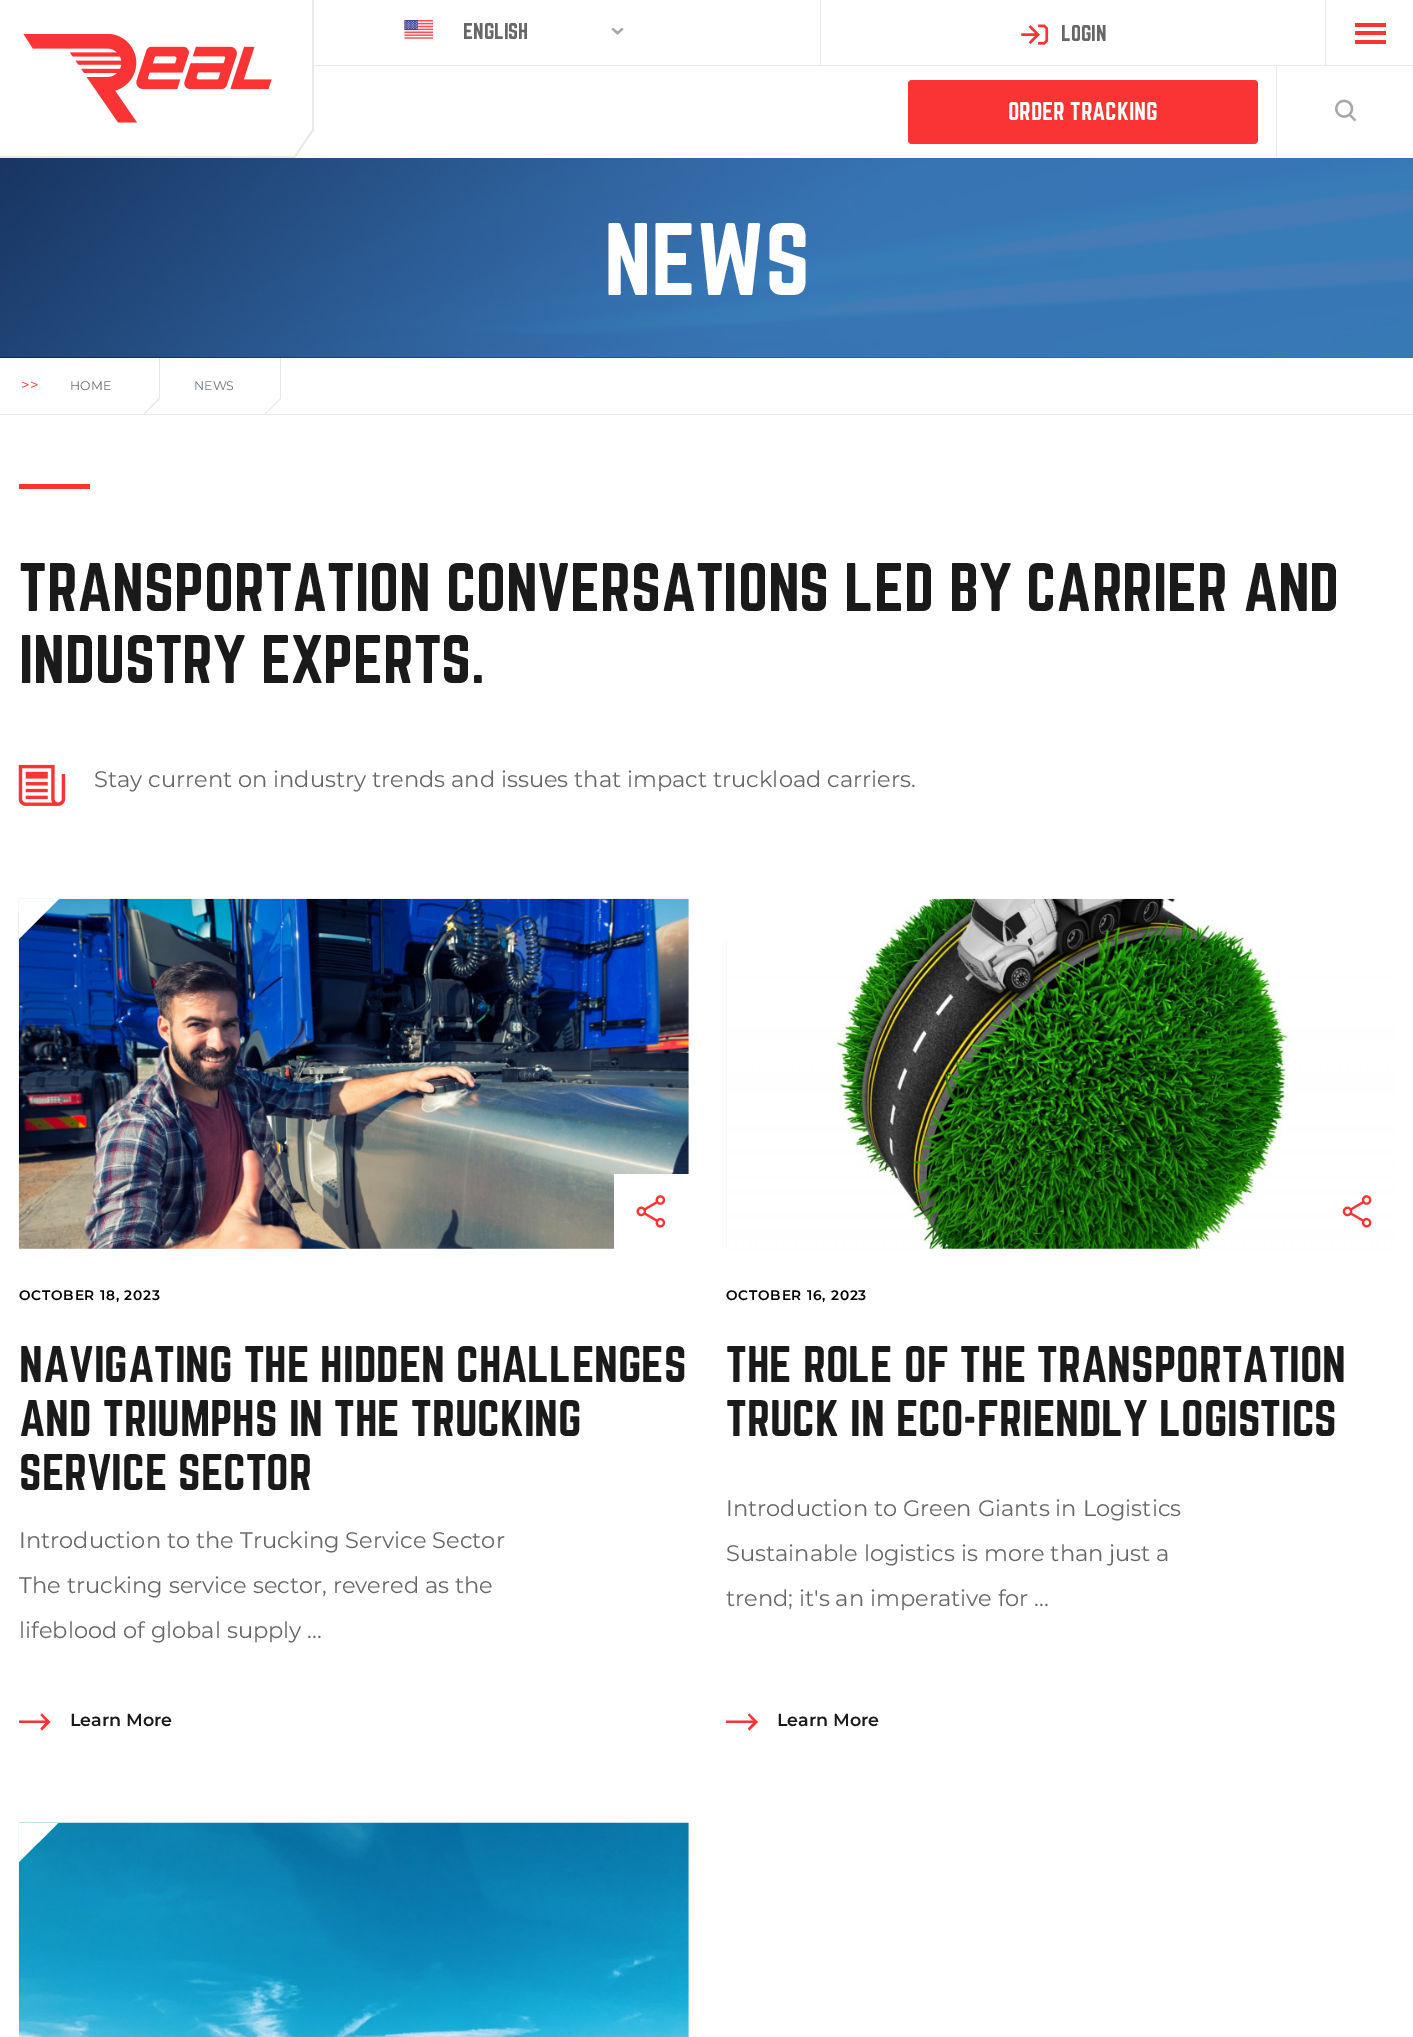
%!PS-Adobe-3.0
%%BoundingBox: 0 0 1413 2037
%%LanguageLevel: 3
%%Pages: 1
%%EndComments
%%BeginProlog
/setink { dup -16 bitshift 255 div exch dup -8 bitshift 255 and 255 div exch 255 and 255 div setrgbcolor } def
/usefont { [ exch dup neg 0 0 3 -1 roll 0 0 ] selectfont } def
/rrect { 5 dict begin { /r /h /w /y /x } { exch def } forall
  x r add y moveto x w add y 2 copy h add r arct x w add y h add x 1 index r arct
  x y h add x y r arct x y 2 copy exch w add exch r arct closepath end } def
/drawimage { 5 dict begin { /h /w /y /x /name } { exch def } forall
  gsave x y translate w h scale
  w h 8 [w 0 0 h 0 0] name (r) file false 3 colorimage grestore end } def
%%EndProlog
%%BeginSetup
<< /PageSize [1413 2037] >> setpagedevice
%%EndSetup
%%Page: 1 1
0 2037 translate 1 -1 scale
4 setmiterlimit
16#FFFFFF setink
0 0 1413 2037 rectfill
16#E9E9E9 setink
0 0 moveto 0 158 lineto 295 158 lineto 314 130 lineto 314 0 lineto closepath fill
16#FFFFFF setink
0 0 moveto 312 0 lineto 312 129 lineto 294 156 lineto 0 156 lineto closepath fill
(img1.raw) 23 34 249 89 drawimage
16#E9E9E9 setink
314 65 1099 1 rectfill
(img2.raw) 404 20 30 19 drawimage
/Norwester-Regular 20 usefont
16#676767 setink
463 39 moveto (ENGLISH) show
(img3.raw) 611 28 13 7 drawimage
16#E9E9E9 setink
1325 0 1 65 rectfill
820 0 1 65 rectfill
(img4.raw) 1021 24 28 21 drawimage
16#676767 setink
1061 41 moveto (LOGIN) show
[
    [1355 23 31 4 16#FA3434]
    [1355 31 31 4 16#FA3434]
    [1355 40 31 4 16#FA3434]
] { aload pop setink rectfill } forall
908 80 350 64 4 rrect fill
/Norwester-Regular 22.5 usefont
16#FFFFFF setink
1008 120 moveto (ORDER TRACKING) show
16#E9E9E9 setink
1276 66 1 92 rectfill
(img5.raw) 1335 99 22 23 drawimage
gsave 0 357 moveto 1413 357 lineto 1413 358 lineto 0 358 lineto closepath clip newpath
<< /ShadingType 2 /ColorSpace /DeviceRGB /Coords [0 258 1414 257] /Extend [true true] /Function << /FunctionType 2 /Domain [0 1] /C0 [0.004 0.027 0.153] /C1 [0.216 0.447 0.694] /N 1 >> >> shfill grestore
(img6.raw) 0 158 1413 200 drawimage
/Norwester-Regular 90 usefont
16#FFFFFF setink
604 295 moveto (NEWS) show
16#E9E9E9 setink
0 414 1413 1 rectfill
/Montserrat-Regular 15 usefont
16#FA3434 setink
21 390 moveto (>>) show
/Montserrat-Regular 12.5 usefont
16#676767 setink
70 390 moveto (HOME) show
16#E9E9E9 setink
158.5 398.5 moveto 159.5 399.5 lineto 144.5 414.5 lineto 143.5 413.5 lineto closepath fill
159 358 1 41 rectfill
16#6C757D setink
194 390 moveto (NEWS) show
16#E9E9E9 setink
280 398.5 moveto 280.5 399.5 lineto 265.5 414.5 lineto 265 413.5 lineto closepath fill
280 358 1 41 rectfill
16#FA3434 setink
19 484 71 5 rectfill
/Norwester-Regular 60 usefont
16#1A1A1A setink
19 611 moveto (TRANSPORTATION CONVERSATIONS LED BY CARRIER AND) show
19 683 moveto (INDUSTRY EXPERTS.) show
(img7.raw) 18 764 48 42 drawimage
/Montserrat-Regular 22.5 usefont
16#676767 setink
94 787 moveto (Stay current on industry trends and issues that impact truckload carriers.) show
16#F8F8F8 setink
19 899 670 350 rectfill
(img8.raw) 18 898 671 351 drawimage
16#FFFFFF setink
19 899 moveto 59 899 lineto 19 939 lineto closepath fill
614 1174 75 75 rectfill
(img9.raw) 636 1195 30 33 drawimage
/Montserrat-SemiBold 13.75 usefont
16#000000 setink
19 1300 moveto 0.75 0 (OCTOBER 18, 2023) ashow
/Norwester-Regular 45 usefont
16#1A1A1A setink
[
    [(NAVIGATING THE HIDDEN CHALLENGES) 19 1382]
    [(AND TRIUMPHS IN THE TRUCKING) 19 1436]
    [(SERVICE SECTOR) 19 1490]
] { aload pop moveto show } forall
/Montserrat-Regular 22.5 usefont
16#676767 setink
[
    [(Introduction to the Trucking Service Sector) 19 1548]
    [(The trucking service sector, revered as the) 19 1593]
    [(lifeblood of global supply ...) 19 1638]
] { aload pop moveto show } forall
16#FA3434 setink
19 1723 moveto 45.5 1723 lineto 40.5 1728.5 lineto 42 1730.5 lineto 50.5 1722 lineto 42 1713.5 lineto 40.5 1715 lineto 45.5 1720.5 lineto 19 1720.5 lineto closepath fill
/Montserrat-SemiBold 17.5 usefont
16#1A1A1A setink
70 1726 moveto (Learn More) show
16#F8F8F8 setink
726 938 594 311 rectfill
(img10.raw) 727 898 668 351 drawimage
16#FFFFFF setink
726 899 moveto 766 899 lineto 726 939 lineto closepath fill
(img11.raw) 1342 1195 30 33 drawimage
/Montserrat-SemiBold 13.75 usefont
16#000000 setink
726 1300 moveto 0.75 0 (OCTOBER 16, 2023) ashow
/Norwester-Regular 45 usefont
16#1A1A1A setink
726 1382 moveto (THE ROLE OF THE TRANSPORTATION) show
726 1436 moveto (TRUCK IN ECO-FRIENDLY LOGISTICS) show
/Montserrat-Regular 22.5 usefont
16#676767 setink
[
    [(Introduction to Green Giants in Logistics) 726 1516]
    [(Sustainable logistics is more than just a) 726 1561]
    [(trend; it's an imperative for ...) 726 1606]
] { aload pop moveto show } forall
16#FA3434 setink
726 1723 moveto 753 1723 lineto 748 1728.5 lineto 749.5 1730.5 lineto 758 1722 lineto 749.5 1713.5 lineto 748 1715 lineto 753 1720.5 lineto 726 1720.5 lineto closepath fill
/Montserrat-SemiBold 17.5 usefont
16#1A1A1A setink
777 1726 moveto (Learn More) show
16#F8F8F8 setink
688 1823 1 214 rectfill
(img12.raw) 18 1822 671 215 drawimage
gsave
19 1823 670 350 rectclip
16#FFFFFF setink
19 1822 moveto 59 1822 lineto 19 1862 lineto closepath fill
grestore
showpage
%%EOF
